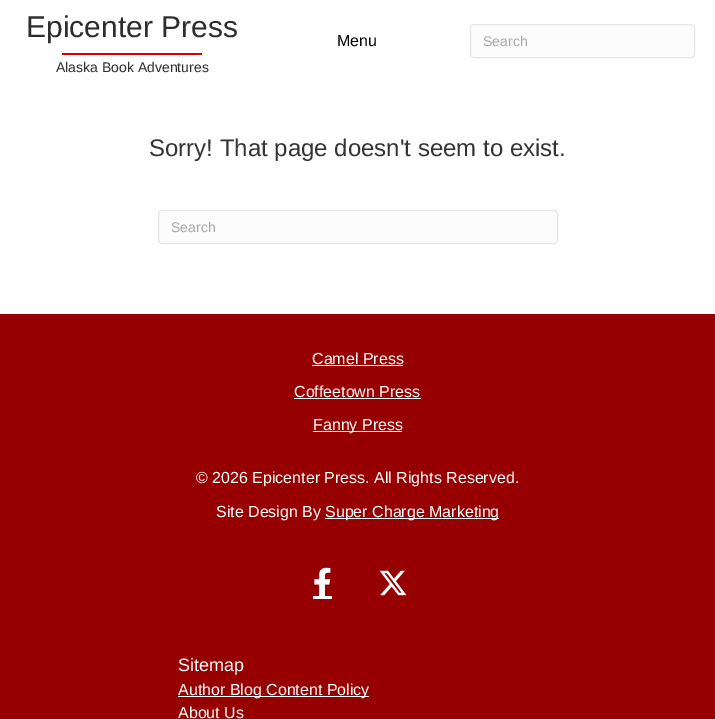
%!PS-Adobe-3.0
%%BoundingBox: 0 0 715 719
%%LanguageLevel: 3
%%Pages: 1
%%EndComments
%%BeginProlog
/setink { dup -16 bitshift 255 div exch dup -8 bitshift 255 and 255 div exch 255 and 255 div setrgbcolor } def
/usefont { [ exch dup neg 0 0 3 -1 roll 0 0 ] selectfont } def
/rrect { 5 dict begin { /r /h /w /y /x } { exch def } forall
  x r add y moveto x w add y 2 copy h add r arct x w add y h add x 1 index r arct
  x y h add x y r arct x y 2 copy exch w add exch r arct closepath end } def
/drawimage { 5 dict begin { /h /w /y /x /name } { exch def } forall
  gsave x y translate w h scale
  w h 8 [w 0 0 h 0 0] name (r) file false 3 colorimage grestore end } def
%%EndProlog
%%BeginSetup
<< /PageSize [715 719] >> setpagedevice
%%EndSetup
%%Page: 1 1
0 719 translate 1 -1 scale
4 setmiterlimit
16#FFFFFF setink
0 0 715 719 rectfill
/LiberationSans-Regular 30 usefont
16#2D2D2D setink
26 37 moveto (Epicenter Press) show
16#DB0000 setink
62 53 140 2 rectfill
/LiberationSans-Regular 14 usefont
16#2D2D2D setink
56 72 moveto (Alaska Book Adventures) show
/LiberationSans-Regular 16 usefont
16#000000 setink
337 46 moveto (Menu) show
16#FCFCFC setink
470.5 24.5 224 33 3.5 rrect gsave fill grestore
16#E6E6E6 setink
stroke
/LiberationSans-Regular 14 usefont
16#A9A9A9 setink
483 46 moveto (Search) show
/LiberationSans-Regular 24 usefont
16#333333 setink
149 156 moveto (Sorry! That page doesn't seem to exist.) show
16#FCFCFC setink
158.5 210.5 399 33 3.5 rrect gsave fill grestore
16#E6E6E6 setink
stroke
/LiberationSans-Regular 14 usefont
16#A9A9A9 setink
171 232 moveto (Search) show
16#960000 setink
0 314 715 405 rectfill
/LiberationSans-Regular 16 usefont
16#FFFFFF setink
312 364 moveto (Camel Press) show
312 365 91 1 rectfill
294 397 moveto (Coffeetown Press) show
294 398 127 1 rectfill
313 431 89 1 rectfill
[
    [(Fanny Press) 313 430]
    [(© 2026 Epicenter Press. All Rights Reserved.) 196 483]
    [(Site Design By) 216 517]
] { aload pop moveto show } forall
325 518 174 1 rectfill
325 517 moveto (Super Charge Marketing) show
(img1.raw) 314 567 17 29 drawimage
313 596 19 3 rectfill
(img2.raw) 379 570 28 26 drawimage
/LiberationSans-Regular 18 usefont
178 671 moveto (Sitemap) show
178 696 191 1 rectfill
/LiberationSans-Regular 16 usefont
178 695 moveto (Author Blog Content Policy) show
178 718 moveto (About Us) show
showpage
%%EOF
